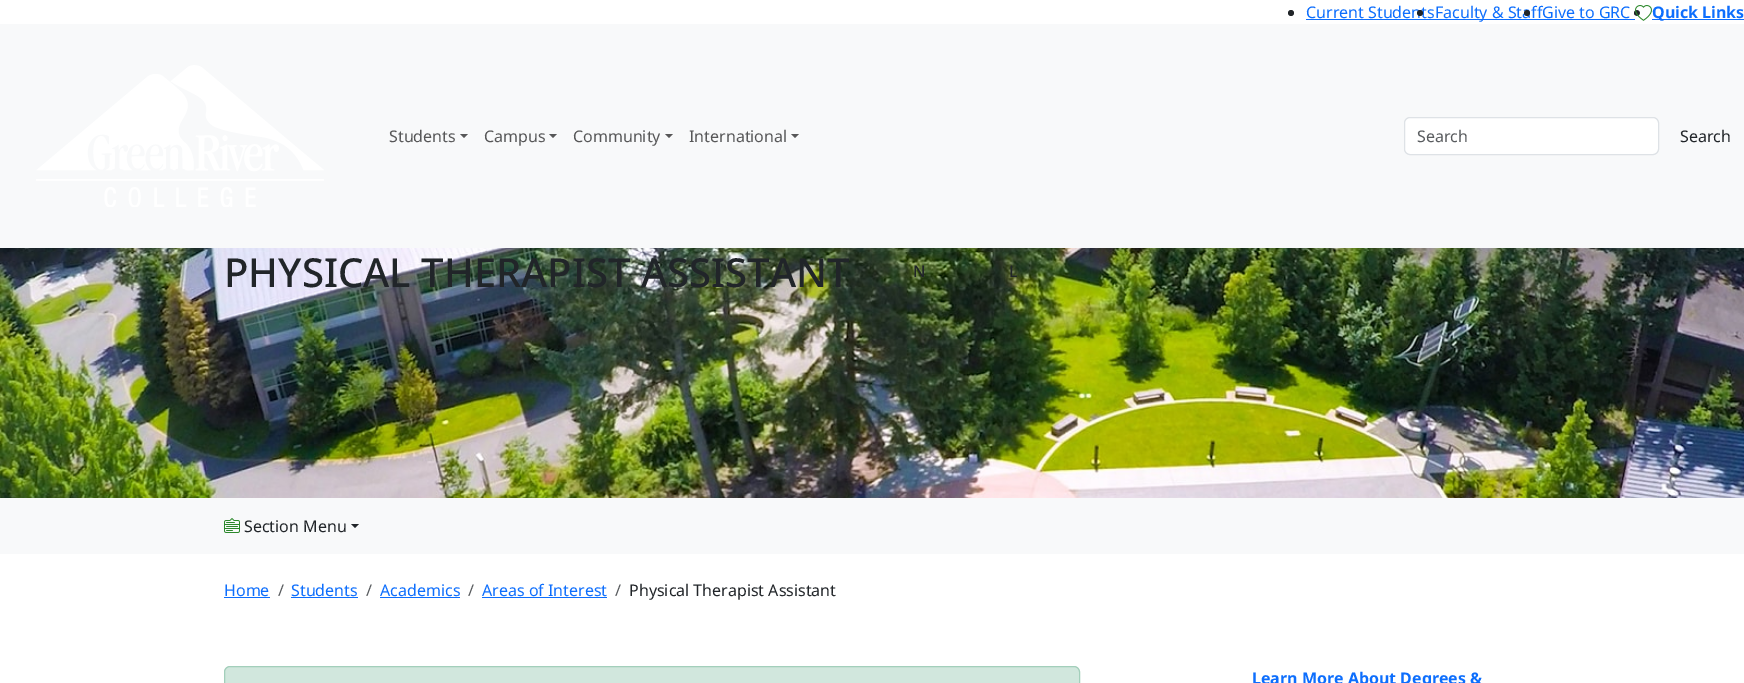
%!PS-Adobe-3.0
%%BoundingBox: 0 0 1744 683
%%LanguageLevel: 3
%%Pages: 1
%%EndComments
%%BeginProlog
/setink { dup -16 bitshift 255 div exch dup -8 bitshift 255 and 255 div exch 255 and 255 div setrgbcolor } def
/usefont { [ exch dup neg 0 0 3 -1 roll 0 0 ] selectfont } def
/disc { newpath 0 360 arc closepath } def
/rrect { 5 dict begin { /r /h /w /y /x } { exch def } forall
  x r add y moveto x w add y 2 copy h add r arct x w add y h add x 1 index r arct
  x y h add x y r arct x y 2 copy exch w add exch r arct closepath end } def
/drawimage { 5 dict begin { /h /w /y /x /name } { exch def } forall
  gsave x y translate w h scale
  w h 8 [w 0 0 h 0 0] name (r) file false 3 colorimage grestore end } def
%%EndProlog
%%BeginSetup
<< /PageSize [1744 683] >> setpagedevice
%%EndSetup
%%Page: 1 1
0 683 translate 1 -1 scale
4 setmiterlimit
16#FFFFFF setink
0 0 1744 683 rectfill
16#212529 setink
1291 13 3 disc fill
16#0D6EFD setink
1306 19 236 1 rectfill
/NotoSans-Regular 16 usefont
1306 18 moveto (Current StudentsFaculty & StaffGive to GRC) show
16#212529 setink
1420 13 3 disc fill
1527 13 3 disc fill
1637 13 3 disc fill
(img1.raw) 1635 5 17 16 drawimage
16#0D6EFD setink
1542 19 93 1 rectfill
1652 19 92 1 rectfill
/NotoSans-Bold 16 usefont
1652 18 moveto (Quick Links) show
16#F8F9FA setink
0 24 1744 224 rectfill
(img2.raw) 36 65 288 142 drawimage
/NotoSans-Regular 16 usefont
16#575758 setink
389 142 moveto (Students) show
460 134 moveto 468 134 lineto 464 138 lineto closepath fill
484 142 moveto (Campus) show
549 134 moveto 557 134 lineto 553 138 lineto closepath fill
573 142 moveto (Community) show
665 134 moveto 673 134 lineto 669 138 lineto closepath fill
689 142 moveto (International) show
791 134 moveto 799 134 lineto 795 138 lineto closepath fill
16#FFFFFF setink
1404.5 117.5 254 37 5.5 rrect gsave fill grestore
16#DEE2E6 setink
stroke
16#595C5F setink
1417 142 moveto (Search) show
16#212529 setink
1680 142 moveto (Search) show
(img3.raw) 0 248 1744 250 drawimage
/NotoSans-Medium 40 usefont
224 287 moveto (PHYSICAL THERAPIST ASSISTANT) show
/NotoSans-Medium 16 usefont
913 277 moveto (N) show
1009 277 moveto (L) show
16#F8F9FA setink
0 498 1744 56 rectfill
(img4.raw) 224 518 16 15 drawimage
/NotoSans-Regular 16 usefont
16#212529 setink
244 532 moveto (Section Menu) show
351 524 moveto 359 524 lineto 355 528 lineto closepath fill
16#0D6EFD setink
224 596 moveto (Home) show
224 597 46 1 rectfill
16#595C5F setink
278 596 moveto (/) show
16#0D6EFD setink
291 596 moveto (Students) show
291 597 67 1 rectfill
16#595C5F setink
366 596 moveto (/) show
16#0D6EFD setink
380 596 moveto (Academics) show
380 597 80 1 rectfill
16#595C5F setink
468 596 moveto (/) show
16#0D6EFD setink
482 596 moveto (Areas of Interest) show
482 597 125 1 rectfill
16#595C5F setink
615 596 moveto (/) show
16#212529 setink
629 596 moveto (Physical Therapist Assistant) show
16#D1E7DD setink
224.5 666.5 855 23 5.5 rrect gsave fill grestore
16#A3CFBB setink
stroke
/NotoSans-Bold 16 usefont
16#0D6EFD setink
1252 684 moveto (Learn More About Degrees &) show
showpage
%%EOF
